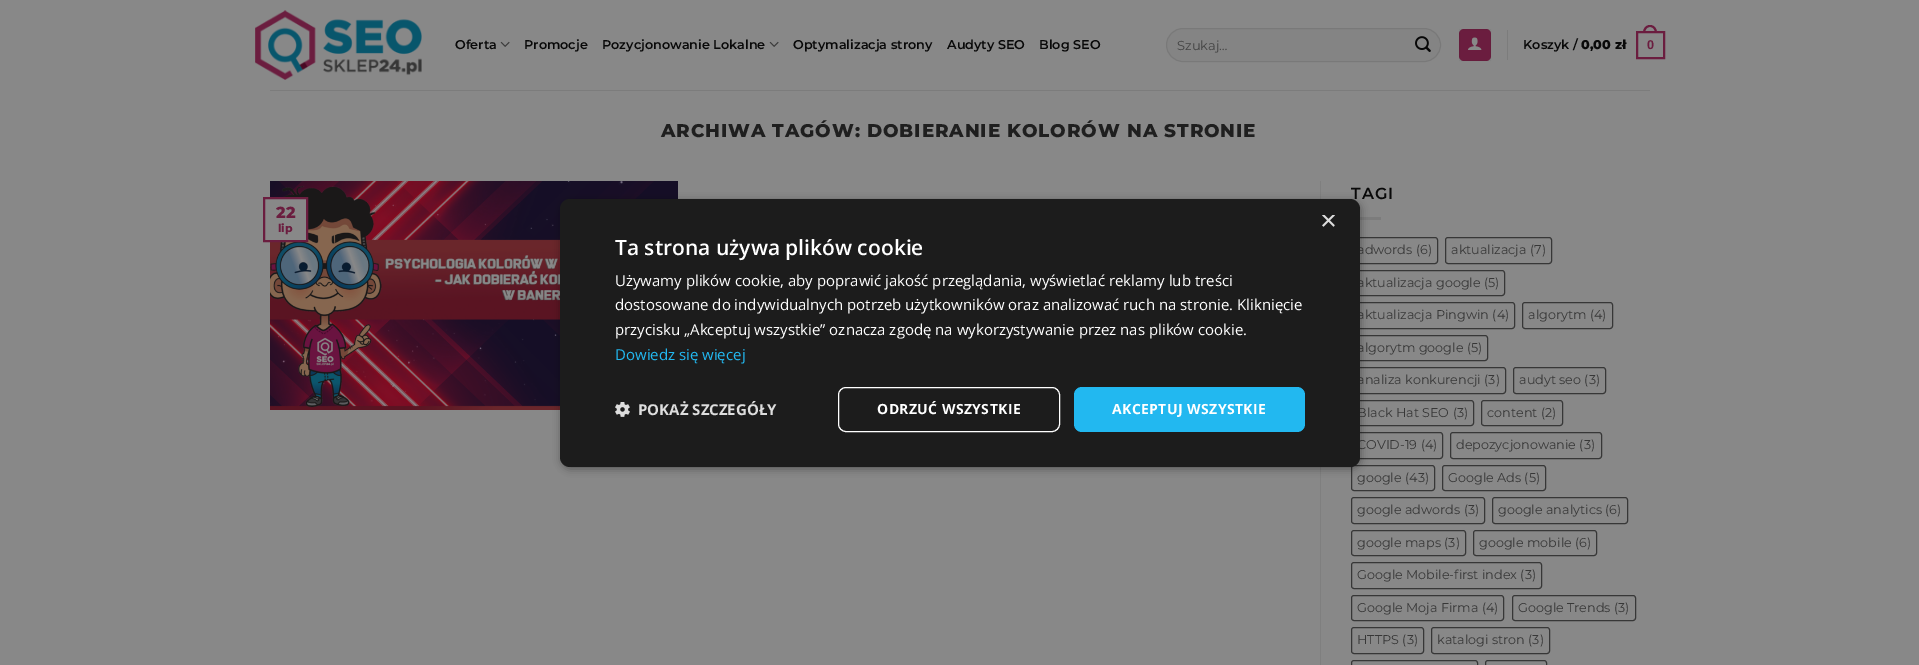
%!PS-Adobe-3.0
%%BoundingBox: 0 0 1919 665
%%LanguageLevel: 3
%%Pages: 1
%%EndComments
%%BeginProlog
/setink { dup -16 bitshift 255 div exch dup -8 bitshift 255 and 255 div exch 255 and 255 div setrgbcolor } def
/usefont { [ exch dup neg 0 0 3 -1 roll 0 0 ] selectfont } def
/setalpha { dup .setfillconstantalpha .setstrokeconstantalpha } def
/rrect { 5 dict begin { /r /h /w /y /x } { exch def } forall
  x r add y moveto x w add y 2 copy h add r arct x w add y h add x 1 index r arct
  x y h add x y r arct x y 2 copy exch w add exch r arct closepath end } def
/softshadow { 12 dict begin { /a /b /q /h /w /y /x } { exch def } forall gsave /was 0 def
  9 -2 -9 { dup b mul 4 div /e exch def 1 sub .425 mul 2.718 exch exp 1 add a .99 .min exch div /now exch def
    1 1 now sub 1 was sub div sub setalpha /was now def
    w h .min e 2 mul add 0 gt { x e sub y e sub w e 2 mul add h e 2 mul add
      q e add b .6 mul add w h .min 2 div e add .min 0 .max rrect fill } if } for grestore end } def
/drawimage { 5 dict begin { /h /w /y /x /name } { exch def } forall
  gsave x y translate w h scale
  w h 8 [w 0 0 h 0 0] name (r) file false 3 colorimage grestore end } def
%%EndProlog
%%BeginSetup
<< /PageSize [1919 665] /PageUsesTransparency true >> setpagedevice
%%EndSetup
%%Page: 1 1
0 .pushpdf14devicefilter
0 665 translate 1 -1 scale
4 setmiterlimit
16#888888 setink
0 0 1919 665 rectfill
(img1.raw) 255 10 167 70 drawimage
/Montserrat-SemiBold 12.75 usefont
16#090909 setink
455 49 moveto (Oferta) show
(img2.raw) 500 41 10 6 drawimage
524 49 moveto (Promocje) show
602 49 moveto (Pozycjonowanie Lokalne) show
(img2.raw) 769 41 10 6 drawimage
[
    [(Optymalizacja strony) 793 49]
    [(Audyty SEO) 947 49]
    [(Blog SEO) 1039 49]
] { aload pop moveto show } forall
16#848484 setink
1166 28 275 34 17 rrect fill
0.09 setalpha
16#090909 setink
1166.5 28.5 274 33 16.5 rrect stroke
/Montserrat-Regular 13 usefont
1 setalpha
16#434343 setink
1177 50 moveto (Szukaj…) show
(img3.raw) 1415 36 16 16 drawimage
16#6B1D3F setink
1459 29 32 32 5 rrect fill
0.05 setalpha
16#090909 setink
1459.5 29.5 31 31 rectstroke
1 setalpha
(img4.raw) 1468 37 14 13 drawimage
16#7C7C7C setink
1507 30 1 30 rectfill
/Montserrat-SemiBold 12.75 usefont
16#090909 setink
1523 49 moveto (Koszyk /) show
/Montserrat-ExtraBold 12.75 usefont
1581 49 moveto (0,00 zł) show
16#6B1D3F setink
2 setlinewidth
1637 32 27 26 rectstroke
1650 25 moveto 1654.5 25 1657 29 1657 33 curveto 1643 33 lineto 1643 29 1645.5 25 1650 25 curveto closepath 1650 27 moveto 1653.5 27 1655 30 1655 33 curveto 1645 33 lineto 1645 30 1646.5 27 1650 27 curveto closepath eofill
/LiberationSans-Bold 12.75 usefont
1647 49 moveto (0) show
16#7C7C7C setink
270 90 1380 1 rectfill
/Montserrat-ExtraBold 18.4 usefont
16#1F1F1F setink
661 137 moveto 0.9 0 (ARCHIWA TAGÓW: DOBIERANIE KOLORÓW NA STRONIE) ashow
(img5.raw) 270 181 408 229 drawimage
16#888888 setink
270 199 36 41 rectfill
16#6B1D3F setink
264 198 43 43 rectstroke
/Montserrat-ExtraBold 16 usefont
276 218 moveto (22) show
/Montserrat-ExtraBold 11 usefont
278 232 moveto (lip) show
16#7F7F7F setink
1320 181 1 484 rectfill
/Montserrat-SemiBold 16 usefont
16#090909 setink
1351 199 moveto 1 0 (TAGI) ashow
16#7C7C7C setink
1360 217 21 3 rectfill
16#373737 setink
1 setlinewidth
1351.5 237.5 86 26 2.5 rrect stroke
/Montserrat-Regular 12.75 usefont
1357 254 moveto (adwords \(6\)) show
1445.5 237.5 106 26 2.5 rrect stroke
1451 254 moveto (aktualizacja \(7\)) show
1351.5 270.5 153 25 2.5 rrect stroke
1357 287 moveto (aktualizacja google \(5\)) show
1351.5 302.5 163 26 2.5 rrect stroke
1357 319 moveto (aktualizacja Pingwin \(4\)) show
1522.5 302.5 90 26 2.5 rrect stroke
1528 319 moveto (algorytm \(4\)) show
1351.5 335.5 136 25 2.5 rrect stroke
1357 352 moveto (algorytm google \(5\)) show
1351.5 367.5 154 26 2.5 rrect stroke
1357 384 moveto (analiza konkurencji \(3\)) show
1513.5 367.5 92 26 2.5 rrect stroke
1519 384 moveto (audyt seo \(3\)) show
1351.5 400.5 122 25 2.5 rrect stroke
1357 417 moveto (Black Hat SEO \(3\)) show
1481.5 400.5 81 25 2.5 rrect stroke
1487 417 moveto (content \(2\)) show
1351.5 432.5 91 26 2.5 rrect stroke
1357 449 moveto (COVID-19 \(4\)) show
1450.5 432.5 151 26 2.5 rrect stroke
1456 449 moveto (depozycjonowanie \(3\)) show
1351.5 465.5 83 25 2.5 rrect stroke
1357 482 moveto (google \(43\)) show
1442.5 465.5 103 25 2.5 rrect stroke
1448 482 moveto (Google Ads \(5\)) show
1351.5 497.5 133 26 2.5 rrect stroke
1357 514 moveto (google adwords \(3\)) show
1492.5 497.5 135 26 2.5 rrect stroke
1498 514 moveto (google analytics \(6\)) show
1351.5 530.5 114 25 2.5 rrect stroke
1357 547 moveto (google maps \(3\)) show
1473.5 530.5 123 25 2.5 rrect stroke
1479 547 moveto (google mobile \(6\)) show
1351.5 562.5 190 26 2.5 rrect stroke
1357 579 moveto (Google Mobile-first index \(3\)) show
1351.5 595.5 152 25 2.5 rrect stroke
1357 612 moveto (Google Moja Firma \(4\)) show
1512.5 595.5 123 25 2.5 rrect stroke
1518 612 moveto (Google Trends \(3\)) show
1351.5 627.5 72 26 2.5 rrect stroke
1357 644 moveto (HTTPS \(3\)) show
1431.5 627.5 118 26 2.5 rrect stroke
1437 644 moveto (katalogi stron \(3\)) show
1351.5 660.5 126 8 2.5 rrect stroke
1485.5 660.5 61 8 2.5 rrect stroke
16#000000 setink
561 201 800 268 10 4 0.35 softshadow
16#1C1C1C setink
560 199 800 268 10 rrect fill
gsave
1320 215 15 15 rectclip
/LiberationSans-Regular 29 usefont
16#DDDDDD setink
1320 230 moveto (×) show
grestore
/OpenSans-SemiBold 21 usefont
16#FFFFFF setink
615 255 moveto (Ta strona używa plików cookie) show
/OpenSans-Regular 15 usefont
[
    [(Używamy plików cookie, aby poprawić jakość przeglądania, wyświetlać reklamy lub treści) 615 286]
    [(dostosowane do indywidualnych potrzeb użytkowników oraz analizować ruch na stronie. Kliknięcie) 615 310]
    [(przycisku „Akceptuj wszystkie” oznacza zgodę na wykorzystywanie przez nas plików cookie.) 615 335]
] { aload pop moveto show } forall
16#22B8F0 setink
615 360 moveto (Dowiedz się więcej) show
(img6.raw) 615 402 15 15 drawimage
/OpenSans-Bold 15 usefont
16#DDDDDD setink
638 415 moveto (POKAŻ SZCZEGÓŁY) show
16#FFFFFF setink
838.5 387.5 221 44 7.5 rrect stroke
/OpenSans-Bold 14 usefont
877 414 moveto 0.4 0 (ODRZUĆ WSZYSTKIE) ashow
16#22B8F0 setink
1074 387 231 45 8 rrect fill
16#FFFFFF setink
1112 414 moveto 0.4 0 (AKCEPTUJ WSZYSTKIE) ashow
.poppdf14devicefilter showpage
%%EOF
